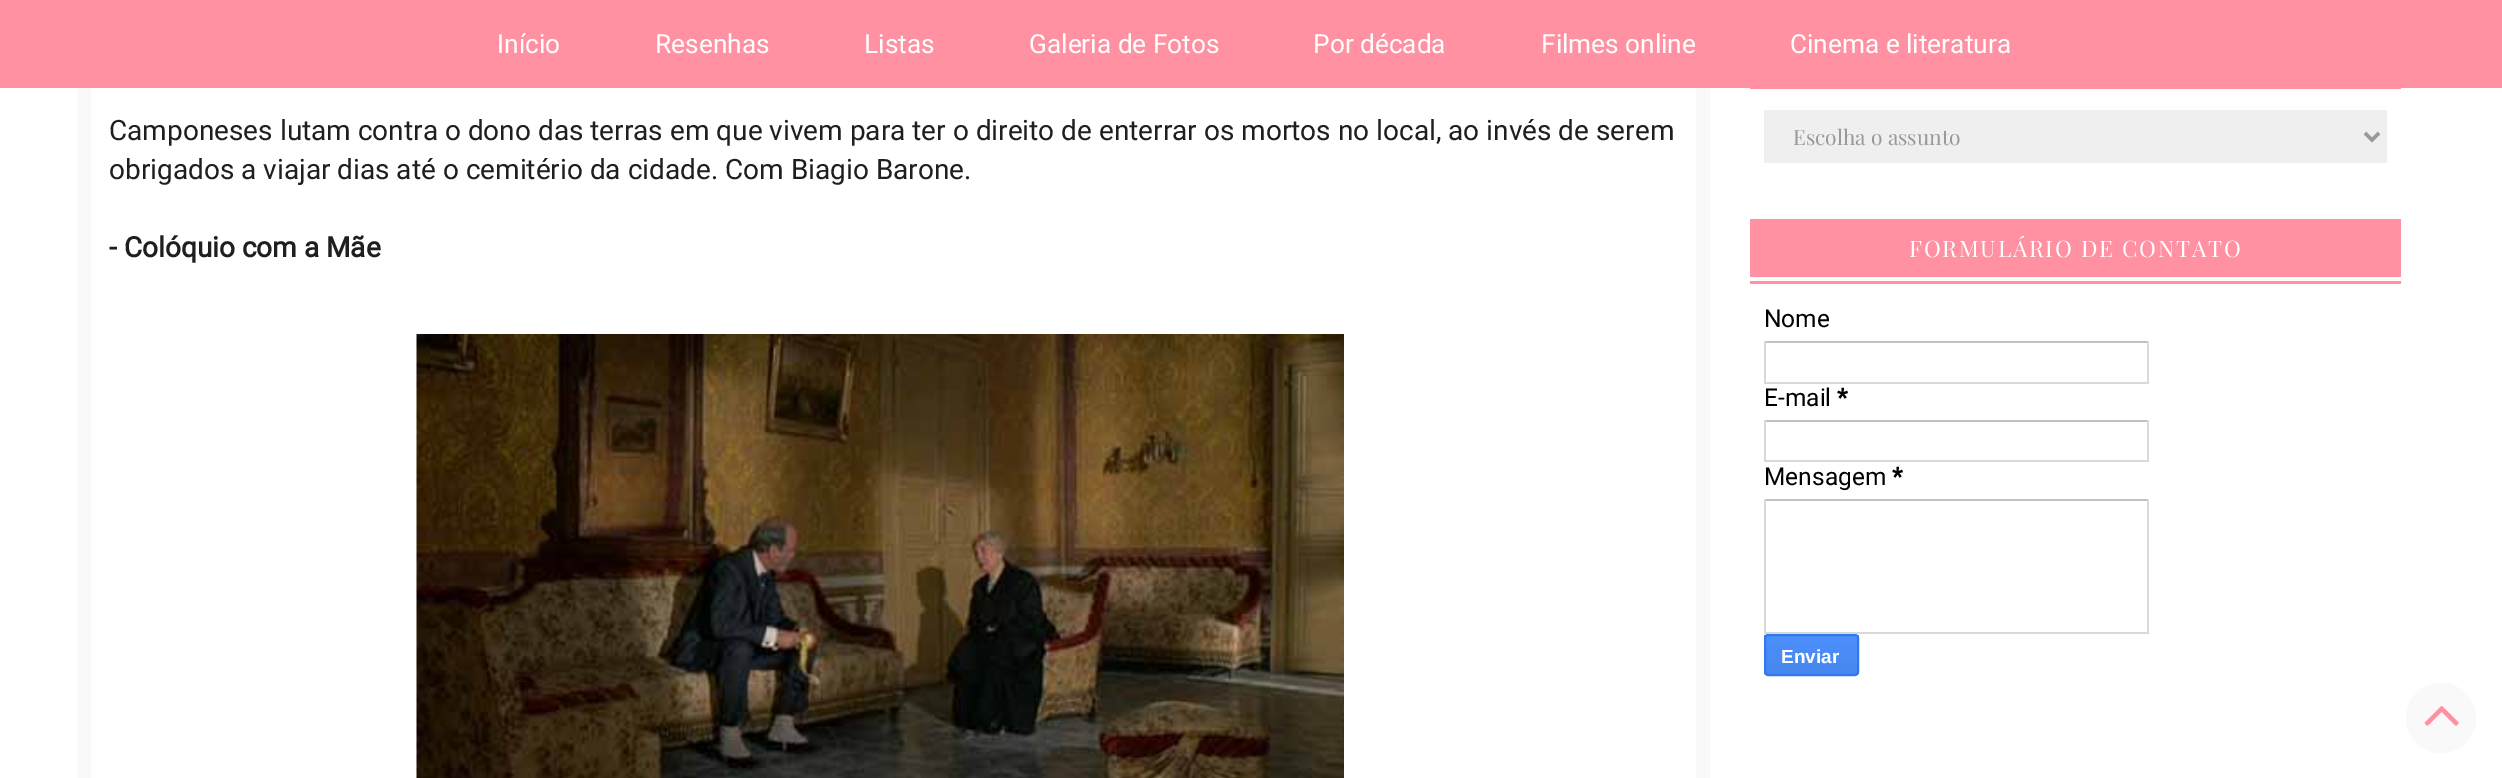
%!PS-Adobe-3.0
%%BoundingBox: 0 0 2502 778
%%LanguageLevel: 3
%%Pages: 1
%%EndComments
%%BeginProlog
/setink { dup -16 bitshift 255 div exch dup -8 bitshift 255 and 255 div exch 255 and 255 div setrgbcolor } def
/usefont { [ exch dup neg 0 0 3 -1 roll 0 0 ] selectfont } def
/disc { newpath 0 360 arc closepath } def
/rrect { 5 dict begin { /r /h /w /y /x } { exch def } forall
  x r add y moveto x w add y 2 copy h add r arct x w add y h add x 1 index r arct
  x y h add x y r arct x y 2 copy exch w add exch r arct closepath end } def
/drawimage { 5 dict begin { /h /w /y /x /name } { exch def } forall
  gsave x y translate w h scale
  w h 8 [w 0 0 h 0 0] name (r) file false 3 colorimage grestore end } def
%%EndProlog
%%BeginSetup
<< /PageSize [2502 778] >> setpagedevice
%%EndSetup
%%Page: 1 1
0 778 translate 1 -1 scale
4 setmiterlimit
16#FFFFFF setink
0 0 2502 778 rectfill
16#F9F9F9 setink
14 setlinewidth
84 -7 1619 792 rectstroke
16#FF91A2 setink
0 0 2502 88 rectfill
/Roboto-Regular 26.25 usefont
16#FFFFFF setink
[
    [(Início) 497 53]
    [(Resenhas) 655 53]
    [(Listas) 864 53]
    [(Galeria de Fotos) 1029 53]
    [(Por década) 1313 53]
    [(Filmes online) 1541 53]
    [(Cinema e literatura) 1790 53]
] { aload pop moveto show } forall
/Roboto-Regular 28 usefont
16#201E1E setink
109 140 moveto (Camponeses lutam contra o dono das terras em que vivem para ter o direito de enterrar os mortos no local, ao invés de serem) show
109 179 moveto (obrigados a viajar dias até o cemitério da cidade. Com Biagio Barone.) show
/Roboto-Bold 28 usefont
109 257 moveto (- Colóquio com a Mãe) show
(img1.raw) 416 334 928 444 drawimage
16#FF91A2 setink
1750 88 651 1 rectfill
16#EFEFEF setink
1764 110 623 53 rectfill
16#999999 setink
3.5 setlinewidth
2365 133 moveto 2372 140 lineto 2379 133 lineto stroke
/PlayfairDisplay-Regular 21 usefont
1793 145 moveto (Escolha o assunto) show
16#FF91A2 setink
1750 219 651 65 rectfill
16#FFFFFF setink
1750 277 651 4 rectfill
/PlayfairDisplay-Regular 22.75 usefont
1909 257 moveto 1.75 0 (FORMULÁRIO DE CONTATO) ashow
/Roboto-Regular 24.5 usefont
16#000000 setink
1764 327 moveto (Nome) show
[
    [1764 341 385 2 16#C0C0C0]
    [2147 341 2 42 16#D9D9D9]
    [1764 382 385 2 16#D9D9D9]
    [1764 341 2 42 16#D9D9D9]
] { aload pop setink rectfill } forall
16#000000 setink
1764 406 moveto (E-mail) show
/Roboto-Bold 24.5 usefont
1837 406 moveto (*) show
[
    [1764 420 385 2 16#C0C0C0]
    [2147 420 2 42 16#D9D9D9]
    [1764 460 385 2 16#D9D9D9]
    [1764 420 2 42 16#D9D9D9]
] { aload pop setink rectfill } forall
/Roboto-Regular 24.5 usefont
16#000000 setink
1764 485 moveto (Mensagem) show
/Roboto-Bold 24.5 usefont
1892 485 moveto (*) show
[
    [1764 499 385 2 16#C0C0C0]
    [2147 499 2 135 16#D9D9D9]
    [1764 632 385 2 16#D9D9D9]
    [1764 499 2 135 16#D9D9D9]
] { aload pop setink rectfill } forall
gsave
1764 634 95 42 4 rrect clip newpath
gsave 1764 635 moveto 1859 635 lineto 1859 674 lineto 1764 674 lineto closepath clip newpath
<< /ShadingType 2 /ColorSpace /DeviceRGB /Coords [1811 635 1811 674] /Extend [true true] /Function << /FunctionType 2 /Domain [0 1] /C0 [0.302 0.565 0.996] /C1 [0.278 0.529 0.929] /N 1 >> >> shfill grestore
grestore
16#3079ED setink
2 setlinewidth
1765 635 93 40 3 rrect stroke
/LiberationSans-Bold 19 usefont
16#FFFFFF setink
1781 663 moveto (Enviar) show
16#F9F9F9 setink
2441 718 35 disc fill
(img2.raw) 2424 706 35 20 drawimage
showpage
%%EOF
